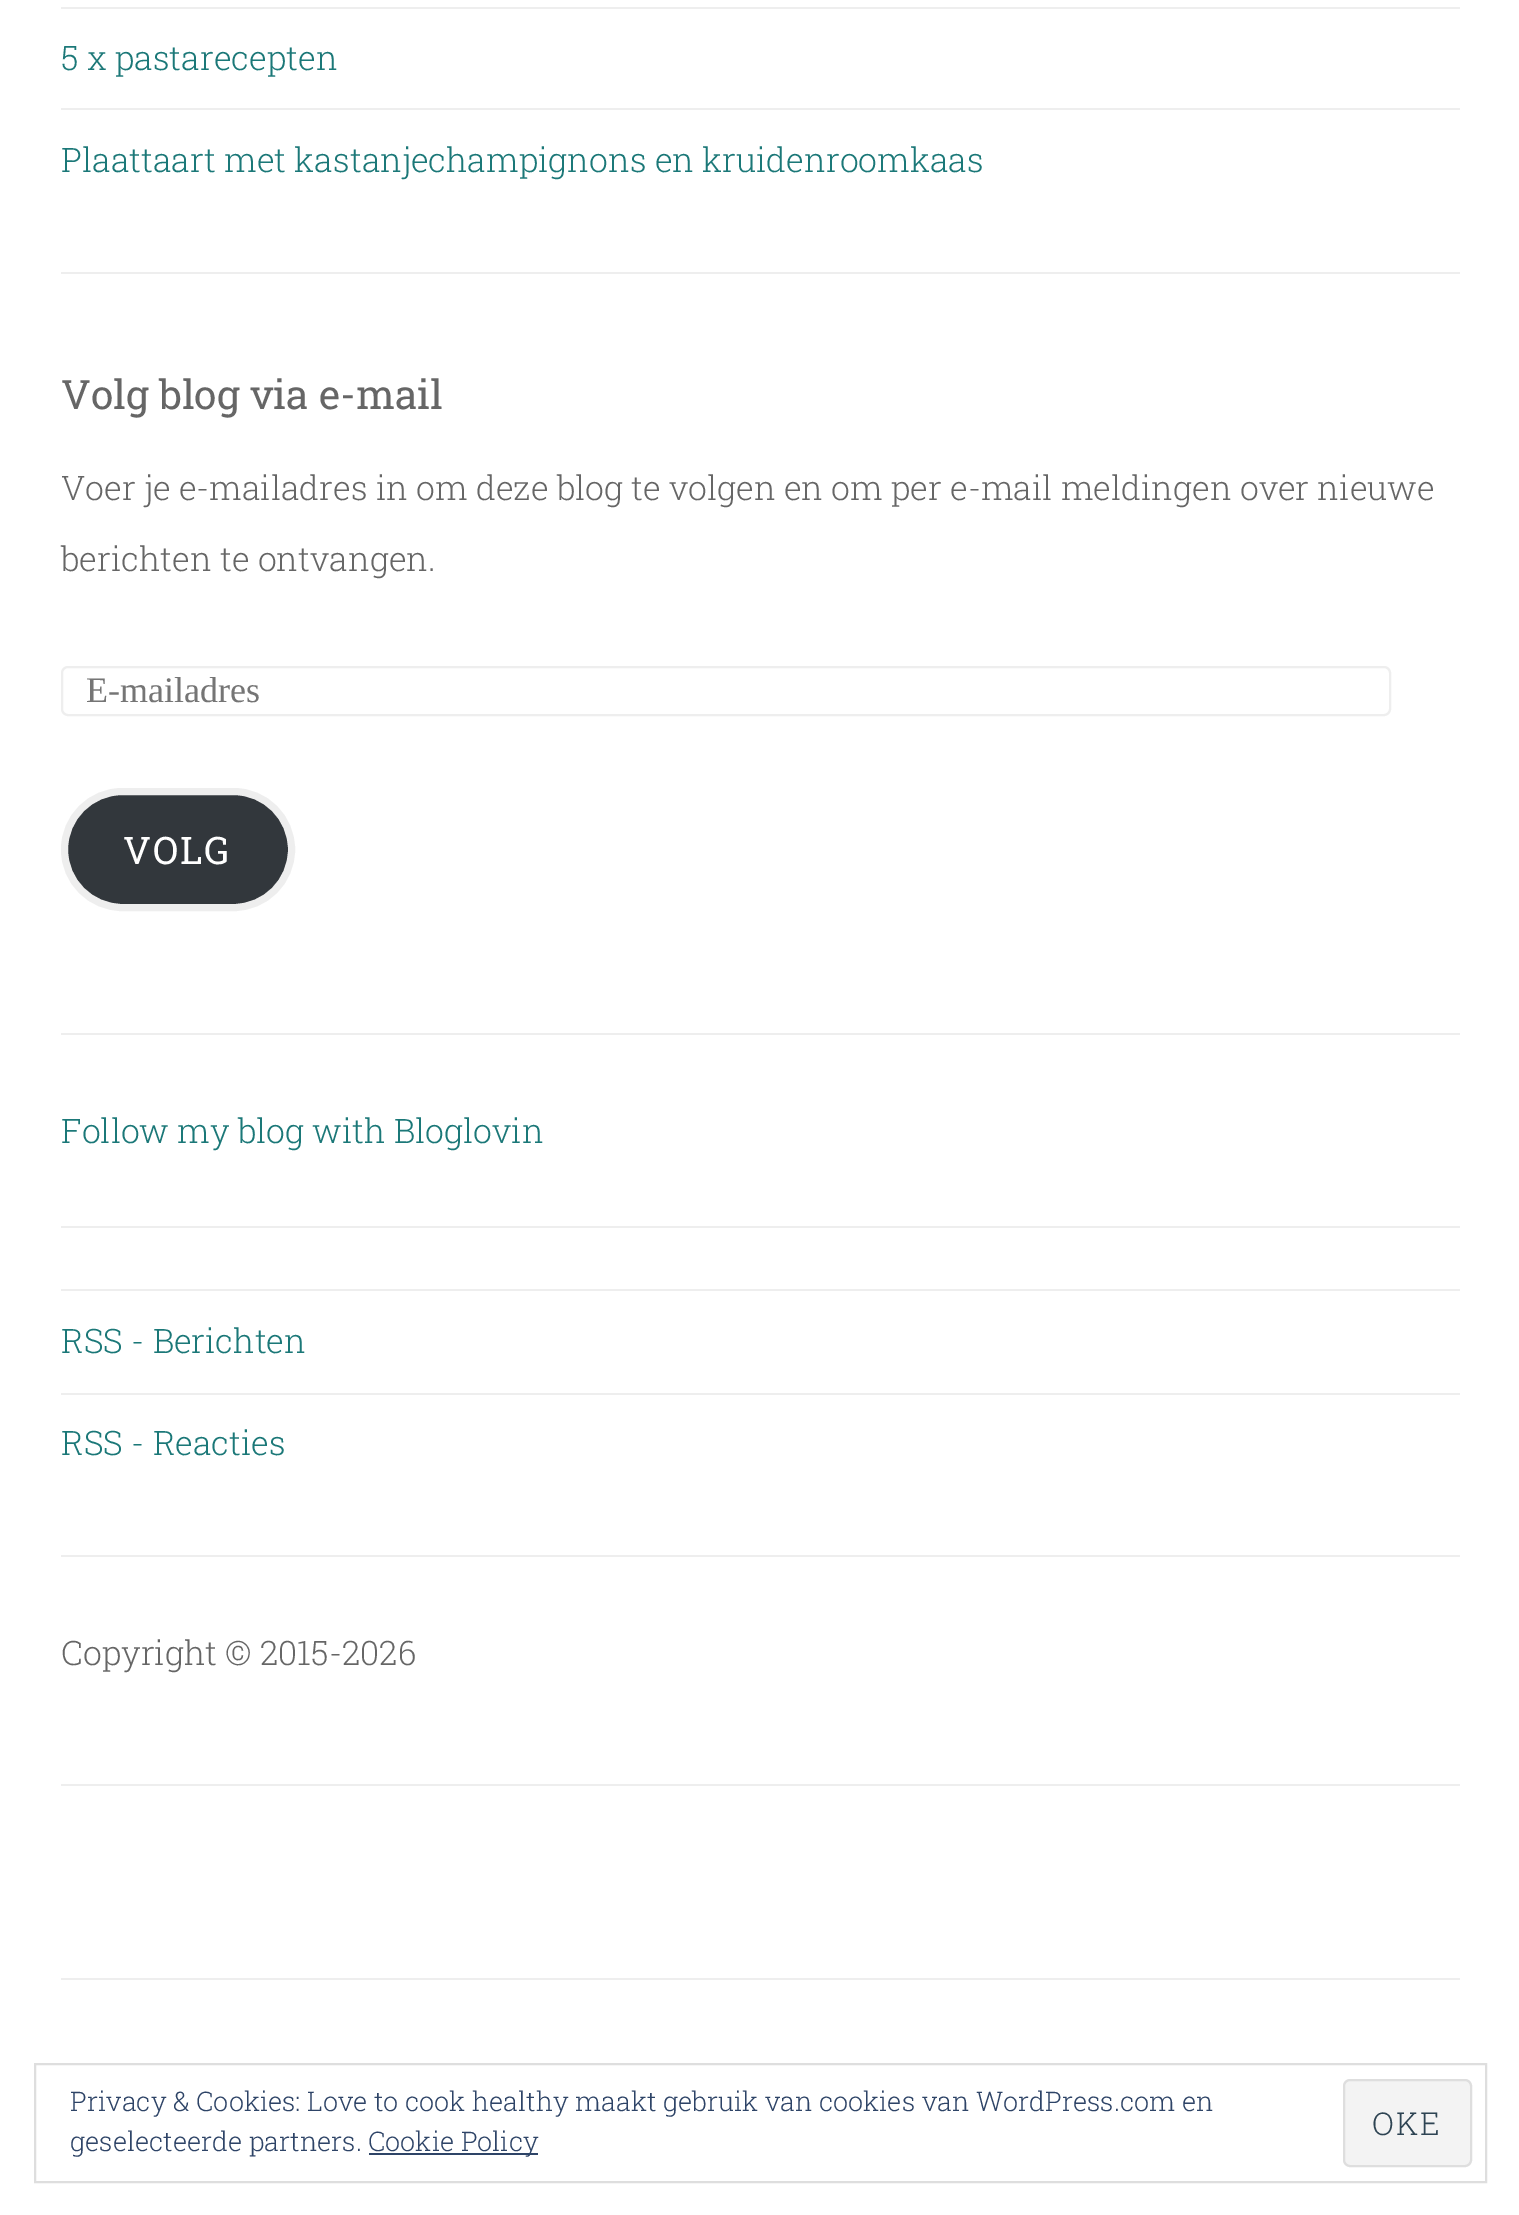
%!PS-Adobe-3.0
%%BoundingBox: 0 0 1519 2215
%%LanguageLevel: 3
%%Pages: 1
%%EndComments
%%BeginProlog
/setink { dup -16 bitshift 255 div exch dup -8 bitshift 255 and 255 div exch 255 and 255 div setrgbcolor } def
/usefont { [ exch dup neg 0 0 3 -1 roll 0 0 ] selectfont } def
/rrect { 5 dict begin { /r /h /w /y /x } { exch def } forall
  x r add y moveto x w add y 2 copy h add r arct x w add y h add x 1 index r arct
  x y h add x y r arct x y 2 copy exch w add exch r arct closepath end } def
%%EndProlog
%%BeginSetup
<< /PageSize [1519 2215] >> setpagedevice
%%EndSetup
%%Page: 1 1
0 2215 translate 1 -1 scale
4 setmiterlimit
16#FFFFFF setink
0 0 1519 2215 rectfill
16#EEEEEE setink
61 272 1399 2 rectfill
61 7 1399 2 rectfill
/RobotoSlab-Light 33.75 usefont
16#1B7878 setink
61 70 moveto (5 x pastarecepten) show
16#EEEEEE setink
61 108 1399 2 rectfill
16#1B7878 setink
61 172 moveto (Plaattaart met kastanjechampignons en kruidenroomkaas) show
16#EEEEEE setink
61 1033 1399 2 rectfill
/RobotoSlab-Regular 40.5 usefont
16#666666 setink
61 409 moveto (Volg blog via e-mail) show
/RobotoSlab-Light 33.75 usefont
61 500 moveto (Voer je e-mailadres in om deze blog te volgen en om per e-mail meldingen over nieuwe) show
61 571 moveto (berichten te ontvangen.) show
16#EEEEEE setink
2 setlinewidth
62 667 1328 48 6 rrect stroke
/LiberationSerif-Regular 36 usefont
16#757575 setink
86 702 moveto (E-mailadres) show
16#32373C setink
64.5 791.5 227 116 58 rrect gsave fill grestore
16#EEEEEE setink
7 setlinewidth
stroke
/RobotoSlab-Regular 38 usefont
16#FFFFFF setink
123 864 moveto 2 0 (VOLG) ashow
16#EEEEEE setink
61 1226 1399 2 rectfill
/RobotoSlab-Light 33.75 usefont
16#1B7878 setink
61 1143 moveto (Follow my blog with Bloglovin) show
16#EEEEEE setink
61 1555 1399 2 rectfill
61 1289 1399 2 rectfill
16#1B7878 setink
61 1353 moveto (RSS - Berichten) show
16#EEEEEE setink
61 1393 1399 2 rectfill
16#1B7878 setink
61 1455 moveto (RSS - Reacties) show
16#EEEEEE setink
61 1784 1399 2 rectfill
16#666666 setink
61 1665 moveto (Copyright © 2015-2026) show
16#EEEEEE setink
61 1978 1399 2 rectfill
16#DEDEDE setink
2 setlinewidth
35 2064 1451 118 rectstroke
/RobotoSlab-Light 27 usefont
16#2E4467 setink
70 2111 moveto (Privacy & Cookies: Love to cook healthy maakt gebruik van cookies van WordPress.com en) show
16#F3F3F3 setink
1344 2080 127 86 6 rrect gsave fill grestore
16#DEDEDE setink
stroke
/RobotoSlab-Light 31.5 usefont
16#2E4453 setink
1372 2135 moveto 2 0 (OKE) ashow
/RobotoSlab-Light 27 usefont
16#2E4467 setink
70 2151 moveto (geselecteerde partners.) show
369 2153 169 2 rectfill
368 2151 moveto (Cookie Policy) show
showpage
%%EOF
